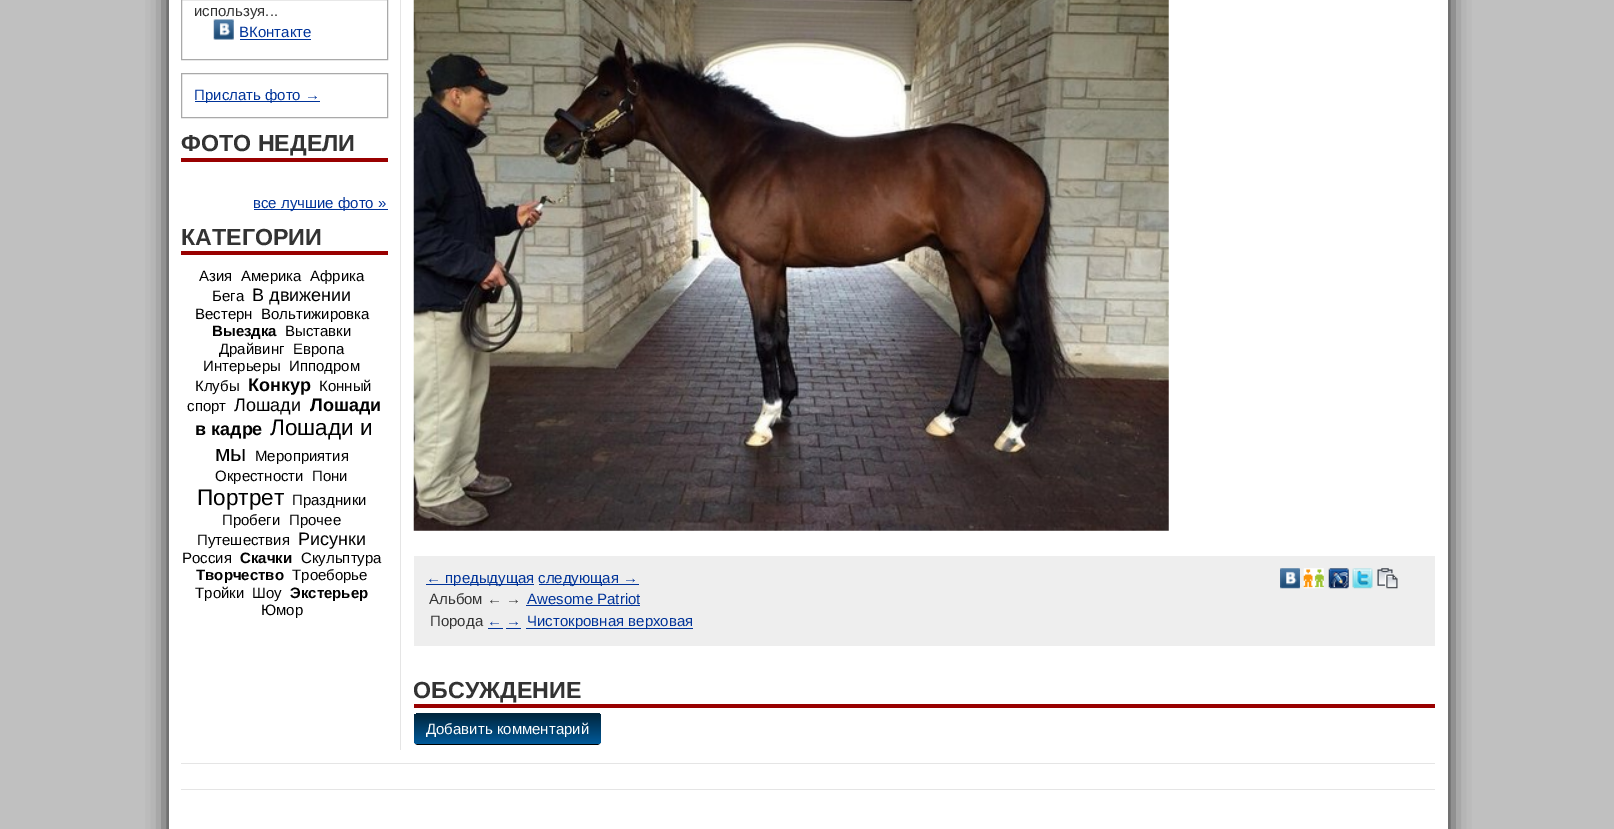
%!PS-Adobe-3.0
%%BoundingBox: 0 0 1614 829
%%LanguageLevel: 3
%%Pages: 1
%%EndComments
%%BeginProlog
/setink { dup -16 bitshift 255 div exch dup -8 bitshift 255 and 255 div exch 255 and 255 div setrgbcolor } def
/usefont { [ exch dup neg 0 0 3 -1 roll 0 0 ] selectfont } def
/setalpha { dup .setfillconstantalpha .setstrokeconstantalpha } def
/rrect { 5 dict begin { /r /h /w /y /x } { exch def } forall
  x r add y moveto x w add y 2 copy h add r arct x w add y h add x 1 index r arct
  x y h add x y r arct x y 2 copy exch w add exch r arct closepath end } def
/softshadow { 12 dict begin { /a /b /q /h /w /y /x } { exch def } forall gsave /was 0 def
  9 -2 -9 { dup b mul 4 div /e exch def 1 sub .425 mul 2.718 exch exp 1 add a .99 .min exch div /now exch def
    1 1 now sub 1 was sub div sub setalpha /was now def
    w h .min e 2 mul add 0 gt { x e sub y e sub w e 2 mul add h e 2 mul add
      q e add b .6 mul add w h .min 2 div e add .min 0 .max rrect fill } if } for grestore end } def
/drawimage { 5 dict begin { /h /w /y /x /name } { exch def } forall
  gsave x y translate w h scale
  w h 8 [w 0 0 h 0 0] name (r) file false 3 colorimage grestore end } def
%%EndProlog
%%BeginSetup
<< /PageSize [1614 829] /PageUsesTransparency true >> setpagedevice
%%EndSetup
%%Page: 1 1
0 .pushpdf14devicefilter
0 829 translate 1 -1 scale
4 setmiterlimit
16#C0C0C0 setink
0 0 1614 829 rectfill
16#212121 setink
169 -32 1279 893 0 10.5 1 softshadow
16#FFFFFF setink
169 0 1279 829 rectfill
16#E5E5E5 setink
400 0 1 750 rectfill
16#A9A9A9 setink
181.5 -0.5 206 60 rectstroke
/LiberationSans-Regular 15 usefont
16#333333 setink
194 16 moveto (используя...) show
(img1.raw) 213 19 21 21 drawimage
16#003399 setink
239 37 moveto (ВКонтакте) show
240 39 71 1 rectfill
16#A9A9A9 setink
181.5 73.5 206 44 rectstroke
16#003399 setink
195 101 125 1 rectfill
194 100 moveto (Прислать фото →) show
16#990000 setink
181 158 207 4 rectfill
/LiberationSans-Bold 23.25 usefont
16#333333 setink
181 151 moveto (ФОТО НЕДЕЛИ) show
16#003399 setink
254 209 134 1 rectfill
/LiberationSans-Regular 15 usefont
253 208 moveto (все лучшие фото ») show
16#990000 setink
181 251 207 4 rectfill
/LiberationSans-Bold 23.25 usefont
16#333333 setink
181 245 moveto (КАТЕГОРИИ) show
/LiberationSans-Regular 15 usefont
16#000000 setink
[
    [(Азия) 199 281]
    [(Америка) 241 281]
    [(Африка) 310 281]
    [(Бега) 212 301]
] { aload pop moveto show } forall
/LiberationSans-Regular 18 usefont
252 301 moveto (В движении) show
/LiberationSans-Regular 15 usefont
195 319 moveto (Вестерн) show
261 319 moveto (Вольтижировка) show
/LiberationSans-Bold 15 usefont
212 336 moveto (Выездка) show
/LiberationSans-Regular 15 usefont
[
    [(Выставки) 285 336]
    [(Драйвинг) 219 354]
    [(Европа) 293 354]
    [(Интерьеры) 203 371]
    [(Ипподром) 289 371]
    [(Клубы) 195 391]
] { aload pop moveto show } forall
/LiberationSans-Bold 18 usefont
248 391 moveto (Конкур) show
/LiberationSans-Regular 15 usefont
319 391 moveto (Конный) show
187 411 moveto (спорт) show
/LiberationSans-Regular 18 usefont
234 411 moveto (Лошади) show
/LiberationSans-Bold 18 usefont
310 411 moveto (Лошади) show
195 435 moveto (в кадре) show
/LiberationSans-Regular 22.5 usefont
270 435 moveto (Лошади и) show
215 461 moveto (мы) show
/LiberationSans-Regular 15 usefont
[
    [(Мероприятия) 255 461]
    [(Окрестности) 215 481]
    [(Пони) 312 481]
] { aload pop moveto show } forall
/LiberationSans-Regular 22.5 usefont
197 505 moveto (Портрет) show
/LiberationSans-Regular 15 usefont
[
    [(Праздники) 292 505]
    [(Пробеги) 222 525]
    [(Прочее) 289 525]
    [(Путешествия) 197 545]
] { aload pop moveto show } forall
/LiberationSans-Regular 18 usefont
298 545 moveto (Рисунки) show
/LiberationSans-Regular 15 usefont
182 563 moveto (Россия) show
/LiberationSans-Bold 15 usefont
240 563 moveto (Скачки) show
/LiberationSans-Regular 15 usefont
301 563 moveto (Скульптура) show
/LiberationSans-Bold 15 usefont
196 580 moveto (Творчество) show
/LiberationSans-Regular 15 usefont
[
    [(Троеборье) 292 580]
    [(Тройки) 195 598]
    [(Шоу) 252 598]
] { aload pop moveto show } forall
/LiberationSans-Bold 15 usefont
290 598 moveto (Экстерьер) show
/LiberationSans-Regular 15 usefont
261 615 moveto (Юмор) show
(img2.raw) 413 0 756 531 drawimage
16#EEEEEE setink
414 556 1021 90 rectfill
16#003399 setink
426 584 108 1 rectfill
426 583 moveto (← предыдущая) show
539 584 100 1 rectfill
538 583 moveto (следующая →) show
(img3.raw) 1280 568 20 21 drawimage
(img4.raw) 1303 568 21 21 drawimage
(img5.raw) 1328 568 21 21 drawimage
(img6.raw) 1352 568 21 21 drawimage
(img7.raw) 1377 568 21 21 drawimage
16#333333 setink
429 604 moveto (Альбом ← →) show
16#003399 setink
527 604 moveto (Awesome Patriot) show
526 605 114 1 rectfill
16#333333 setink
430 626 moveto (Порода) show
16#003399 setink
487 626 moveto (← →) show
[
    [488 628 15 1 16#003399]
    [506 628 15 1 16#003399]
    [526 628 167 1 16#003399]
] { aload pop setink rectfill } forall
527 626 moveto (Чистокровная верховая) show
16#990000 setink
414 704 1021 4 rectfill
/LiberationSans-Bold 23.25 usefont
16#333333 setink
413 698 moveto (ОБСУЖДЕНИЕ) show
16#000000 setink
414 741 moveto 414 743 416 745 418 745 curveto 597 745 lineto 599 745 601 743 601 741 curveto 600 743 599 744 598 744 curveto 418 744 lineto 416 744 415 743 414 741 curveto closepath fill
gsave
414 713 187 31 4 rrect clip newpath
gsave 414 714 moveto 601 714 lineto 601 740 lineto 601 742 599 744 597 744 curveto 418 744 lineto 416 744 414 742 414 740 curveto closepath clip newpath
<< /ShadingType 2 /ColorSpace /DeviceRGB /Coords [508 714 508 744] /Extend [true true] /Function << /FunctionType 2 /Domain [0 1] /C0 [0 0.149 0.243] /C1 [0 0.353 0.604] /N 1 >> >> shfill grestore
grestore
/LiberationSans-Regular 15 usefont
16#FFFFFF setink
426 734 moveto (Добавить комментарий) show
[
    [416 713 184 1 16#00263E]
    [181 763 1254 1 16#E5E5E5]
    [181 789 1254 1 16#E5E5E5]
] { aload pop setink rectfill } forall
.poppdf14devicefilter showpage
%%EOF
